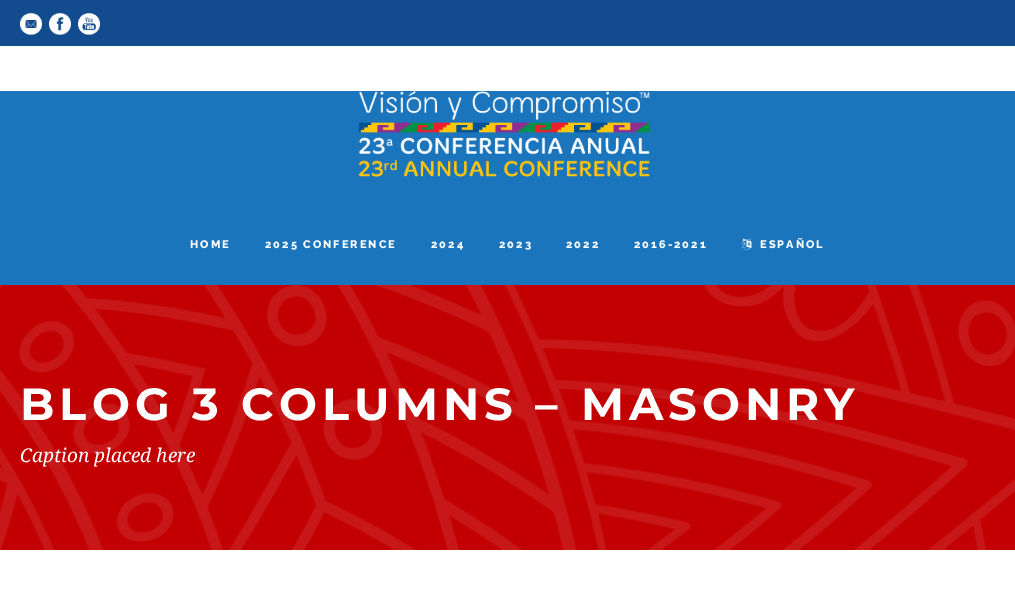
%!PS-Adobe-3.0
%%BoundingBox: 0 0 1015 606
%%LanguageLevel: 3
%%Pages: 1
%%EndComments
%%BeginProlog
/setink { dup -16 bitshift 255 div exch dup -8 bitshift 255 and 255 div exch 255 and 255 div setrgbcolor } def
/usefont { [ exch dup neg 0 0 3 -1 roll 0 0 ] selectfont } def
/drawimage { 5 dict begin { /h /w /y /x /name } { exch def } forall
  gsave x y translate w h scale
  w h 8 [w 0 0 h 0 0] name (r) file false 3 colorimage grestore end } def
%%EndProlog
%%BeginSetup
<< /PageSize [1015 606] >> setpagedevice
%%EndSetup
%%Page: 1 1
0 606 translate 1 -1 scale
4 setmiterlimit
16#FFFFFF setink
0 0 1015 606 rectfill
16#124C8E setink
0 0 1015 46 rectfill
(img1.raw) 20 13 22 22 drawimage
(img2.raw) 49 13 22 22 drawimage
(img3.raw) 78 13 22 22 drawimage
16#1B75BC setink
0 91 1015 194 rectfill
(img4.raw) 358 91 292 86 drawimage
/Raleway-ExtraBold 11 usefont
16#FFFFFF setink
190 248 moveto 2 0 (HOME) ashow
265 248 moveto 2 0 (2025 CONFERENCE) ashow
431 248 moveto 2 0 (2024) ashow
499 248 moveto 2 0 (2023) ashow
566 248 moveto 2 0 (2022) ashow
634 248 moveto 2 0 (2016-2021) ashow
(img5.raw) 742 238 10 12 drawimage
760 248 moveto 2 0 (ESPAÑOL) ashow
(img6.raw) 0 285 1015 265 drawimage
/Montserrat-Bold 45 usefont
20 420 moveto 5 0 (BLOG 3 COLUMNS – MASONRY) ashow
/DroidSerif-Italic 19 usefont
20 462 moveto (Caption placed here) show
showpage
%%EOF
